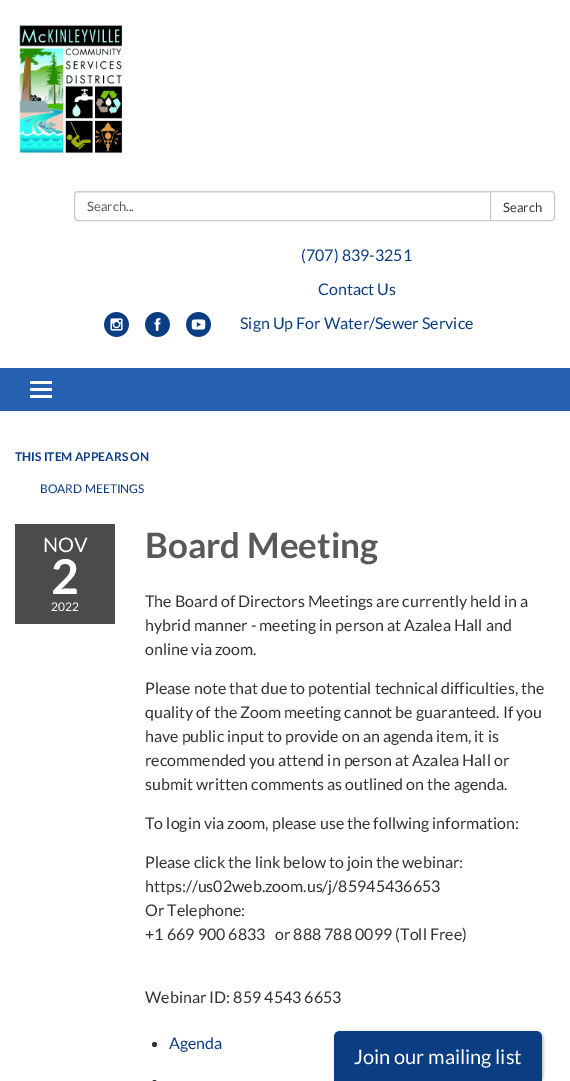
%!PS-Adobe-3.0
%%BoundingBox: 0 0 570 1081
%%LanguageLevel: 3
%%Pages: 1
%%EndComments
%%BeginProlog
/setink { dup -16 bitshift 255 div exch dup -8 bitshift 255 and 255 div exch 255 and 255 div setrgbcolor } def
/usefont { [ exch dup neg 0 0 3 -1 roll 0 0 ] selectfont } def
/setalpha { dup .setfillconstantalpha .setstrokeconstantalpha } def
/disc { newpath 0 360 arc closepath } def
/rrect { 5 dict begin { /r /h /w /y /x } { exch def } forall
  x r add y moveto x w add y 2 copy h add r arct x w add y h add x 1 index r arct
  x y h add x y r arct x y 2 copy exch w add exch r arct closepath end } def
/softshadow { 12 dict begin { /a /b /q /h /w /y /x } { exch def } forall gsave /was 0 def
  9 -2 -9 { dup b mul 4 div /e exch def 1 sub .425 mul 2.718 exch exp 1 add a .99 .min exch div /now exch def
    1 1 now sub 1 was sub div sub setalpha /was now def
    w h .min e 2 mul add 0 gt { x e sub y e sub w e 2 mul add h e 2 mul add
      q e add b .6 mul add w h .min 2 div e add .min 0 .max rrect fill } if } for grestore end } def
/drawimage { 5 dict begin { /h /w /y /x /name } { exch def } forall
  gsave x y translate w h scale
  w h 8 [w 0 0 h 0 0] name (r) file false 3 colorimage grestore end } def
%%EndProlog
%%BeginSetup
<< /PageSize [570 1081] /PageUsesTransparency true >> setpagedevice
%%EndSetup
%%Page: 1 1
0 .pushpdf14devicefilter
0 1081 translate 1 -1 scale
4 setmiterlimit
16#FFFFFF setink
0 0 570 1081 rectfill
(img1.raw) 19 25 104 128 drawimage
16#ECECEC setink
78 193 moveto 490 193 lineto 490 192 lineto 78 192 lineto 76 192 75 194 75 196 curveto 75 194 76 193 78 193 curveto closepath fill
16#CCCCCC setink
78 191.5 moveto 490.5 191.5 lineto 490.5 220.5 lineto 78 220.5 lineto 76 220.5 74.5 219 74.5 217 curveto 74.5 195 lineto 74.5 193 76 191.5 78 191.5 curveto closepath stroke
/Lato-Regular 13 usefont
16#58595B setink
87 211 moveto (Search...) show
16#FFFFFF setink
490.5 191.5 moveto 551 191.5 lineto 553 191.5 554.5 193 554.5 195 curveto 554.5 217 lineto 554.5 219 553 220.5 551 220.5 curveto 490.5 220.5 lineto closepath gsave fill grestore
16#CCCCCC setink
stroke
16#333333 setink
503 212 moveto (Search) show
(img2.raw) 104 312 25 25 drawimage
(img3.raw) 145 312 25 25 drawimage
(img4.raw) 186 312 25 25 drawimage
/Lato-Regular 16 usefont
16#0B3D83 setink
[
    [(\(707\) 839-3251) 301 261]
    [(Contact Us) 318 295]
    [(Sign Up For Water/Sewer Service) 240 329]
] { aload pop moveto show } forall
16#2760B0 setink
0 368 570 43 rectfill
16#FFFFFF setink
30 381 22 3 1 rrect fill
30 388 22 3 1 rrect fill
30 395 22 3 1 rrect fill
/Lato-Bold 12 usefont
16#0B3D83 setink
15 461 moveto (THIS ITEM APPEARS ON) show
/Lato-Regular 12 usefont
40 493 moveto (BOARD MEETINGS) show
16#4B4B4B setink
15 524 100 100 rectfill
/Lato-Regular 20 usefont
16#FFFFFF setink
43 552 moveto (NOV) show
/Lato-Bold 48 usefont
51 594 moveto (2) show
/Lato-Regular 12 usefont
51 611 moveto (2022) show
/Lato-Bold 35 usefont
16#58595B setink
145 558 moveto (Board Meeting) show
/Lato-Regular 16 usefont
16#333333 setink
[
    [(The Board of Directors Meetings are currently held in a) 145 607]
    [(hybrid manner - meeting in person at Azalea Hall and) 145 631]
    [(online via zoom.) 145 655]
    [(Please note that due to potential technical difficulties, the) 145 694]
    [(quality of the Zoom meeting cannot be guaranteed. If you) 145 718]
    [(have public input to provide on an agenda item, it is) 145 742]
    [(recommended you attend in person at Azalea Hall or) 145 766]
    [(submit written comments as outlined on the agenda.) 145 790]
    [(To login via zoom, please use the follwing information:) 145 829]
    [(Please click the link below to join the webinar:) 145 868]
    [(https://us02web.zoom.us/j/85945436653) 145 892]
    [(Or Telephone:) 145 916]
    [(+1 669 900 6833   or 888 788 0099 \(Toll Free\)) 145 940]
    [(Webinar ID: 859 4543 6653) 145 1003]
] { aload pop moveto show } forall
154.5 1044.5 2.5 disc fill
16#0B3D83 setink
169 1049 moveto (Agenda) show
16#333333 setink
152 1080 5 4 2.5 rrect fill
16#000000 setink
335 1032 208 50 6 1.5 0.3 softshadow
16#0B3D83 setink
340 1031 moveto 536 1031 lineto 539.5 1031 542 1033.5 542 1037 curveto 542 1081 lineto 334 1081 lineto 334 1037 lineto 334 1033.5 336.5 1031 340 1031 curveto closepath fill
/Lato-Regular 20 usefont
16#FFFFFF setink
354 1064 moveto (Join our mailing list) show
.poppdf14devicefilter showpage
%%EOF
